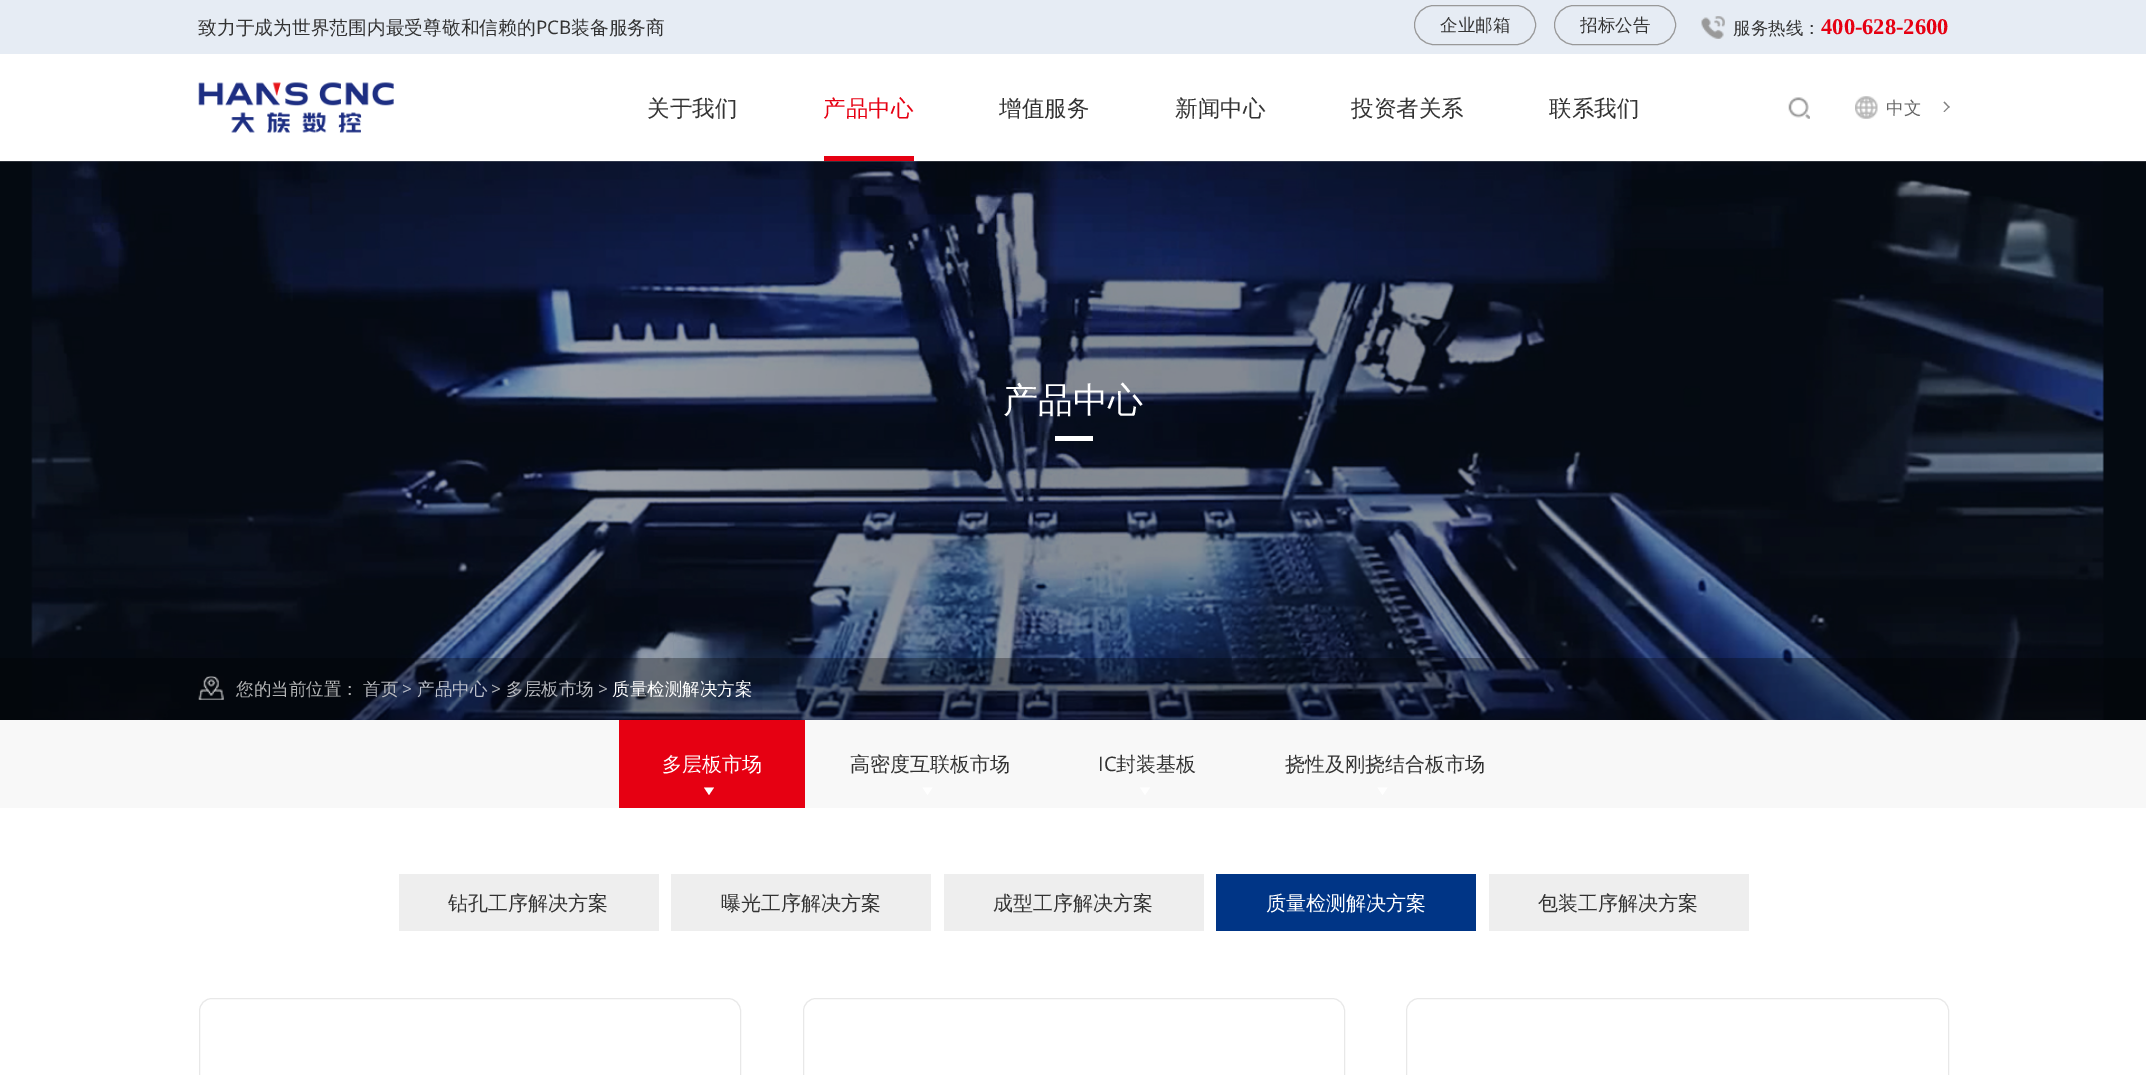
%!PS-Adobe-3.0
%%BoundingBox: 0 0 2146 1075
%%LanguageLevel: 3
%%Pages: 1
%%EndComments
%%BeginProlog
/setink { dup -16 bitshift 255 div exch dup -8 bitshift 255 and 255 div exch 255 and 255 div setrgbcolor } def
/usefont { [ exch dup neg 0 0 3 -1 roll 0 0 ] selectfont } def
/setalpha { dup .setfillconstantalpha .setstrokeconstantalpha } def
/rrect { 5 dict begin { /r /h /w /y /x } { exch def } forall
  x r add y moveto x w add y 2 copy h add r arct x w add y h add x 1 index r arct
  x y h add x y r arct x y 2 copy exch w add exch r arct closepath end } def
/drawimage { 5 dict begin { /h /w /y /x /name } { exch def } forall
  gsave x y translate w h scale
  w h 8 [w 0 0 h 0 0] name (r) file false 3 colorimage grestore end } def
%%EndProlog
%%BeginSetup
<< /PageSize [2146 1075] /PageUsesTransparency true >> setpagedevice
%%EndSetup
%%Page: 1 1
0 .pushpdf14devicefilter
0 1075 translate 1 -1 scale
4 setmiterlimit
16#FFFFFF setink
0 0 2146 1075 rectfill
16#E6ECF4 setink
0 0 2146 54 rectfill
/WenQuanYiZenHei-Medium 18.75 usefont
16#333333 setink
198 34 moveto (致力于成为世界范围内最受尊敬和信赖的) show
/OpenSans-Regular 18.75 usefont
536 34 moveto (PCB) show
/WenQuanYiZenHei-Medium 18.75 usefont
571 34 moveto (装备服务商) show
16#999999 setink
1414.5 5.5 121 39 19.5 rrect stroke
/WenQuanYiZenHei-Medium 17.5 usefont
16#333333 setink
1440 31 moveto (企业邮箱) show
16#999999 setink
1554.5 5.5 121 39 19.5 rrect stroke
16#333333 setink
1580 31 moveto (招标公告) show
(img1.raw) 1701 16 24 23 drawimage
1733 34 moveto (服务热线：) show
/LiberationSerif-Bold 22.5 usefont
16#E60012 setink
1821 34 moveto (400-628-2600) show
(img2.raw) 198 82 196 51 drawimage
/WenQuanYiZenHei-Medium 22.5 usefont
16#333333 setink
647 116 moveto (关于我们) show
16#E60012 setink
823 116 moveto (产品中心) show
824 156 90 5 rectfill
16#333333 setink
[
    [(增值服务) 999 116]
    [(新闻中心) 1175 116]
    [(投资者关系) 1351 116]
    [(联系我们) 1549 116]
] { aload pop moveto show } forall
(img3.raw) 1788 97 22 22 drawimage
(img4.raw) 1855 96 23 23 drawimage
/WenQuanYiZenHei-Medium 17.5 usefont
16#666666 setink
1886 114 moveto (中文) show
16#818181 setink
1944.5 101.5 moveto 1949.5 107 lineto 1949 108 lineto 1943.5 102.5 lineto closepath fill
1949 106 moveto 1949.5 107 lineto 1944.5 112 lineto 1943.5 111.5 lineto closepath fill
(img5.raw) 0 161 2146 559 drawimage
/WenQuanYiZenHei-Medium 35 usefont
16#FFFFFF setink
1003 412 moveto (产品中心) show
1055 436 38 5 rectfill
0.3 setalpha
16#000000 setink
0 658 2146 62 rectfill
1 setalpha
(img6.raw) 198 676 26 24 drawimage
/WenQuanYiZenHei-Medium 17.5 usefont
16#B4B5B6 setink
236 695 moveto (您的当前位置：) show
16#B8BABF setink
363 695 moveto (首页) show
/OpenSans-Regular 17.5 usefont
16#BCC0CB setink
402 695 moveto (>) show
/WenQuanYiZenHei-Medium 17.5 usefont
417 695 moveto (产品中心) show
/OpenSans-Regular 17.5 usefont
16#B8BABF setink
491 695 moveto (>) show
/WenQuanYiZenHei-Medium 17.5 usefont
506 695 moveto (多层板市场) show
/OpenSans-Regular 17.5 usefont
598 695 moveto (>) show
/WenQuanYiZenHei-Medium 17.5 usefont
16#FFFFFF setink
612 695 moveto (质量检测解决方案) show
16#F8F8F8 setink
0 720 2146 88 rectfill
16#E60012 setink
619 720 186 88 rectfill
/WenQuanYiZenHei-Medium 20 usefont
16#FFFFFF setink
662 771 moveto (多层板市场) show
704 787.5 moveto 714 787.5 lineto 709 795 lineto closepath fill
16#333333 setink
850 771 moveto (高密度互联板市场) show
16#FFFFFF setink
922.5 787.5 moveto 932.5 787.5 lineto 927.5 795 lineto closepath fill
/OpenSans-Regular 20 usefont
16#333333 setink
1098 771 moveto (IC) show
/WenQuanYiZenHei-Medium 20 usefont
1116 771 moveto (封装基板) show
16#FFFFFF setink
1140 787.5 moveto 1150 787.5 lineto 1145 795 lineto closepath fill
16#333333 setink
1285 771 moveto (挠性及刚挠结合板市场) show
16#FFFFFF setink
1377.5 787.5 moveto 1387.5 787.5 lineto 1382.5 795 lineto closepath fill
16#EEEEEE setink
399 874 260 57 rectfill
16#333333 setink
448 910 moveto (钻孔工序解决方案) show
16#EEEEEE setink
671 874 260 57 rectfill
16#333333 setink
721 910 moveto (曝光工序解决方案) show
16#EEEEEE setink
944 874 260 57 rectfill
16#333333 setink
993 910 moveto (成型工序解决方案) show
16#003586 setink
1216 874 260 57 rectfill
16#FFFFFF setink
1266 910 moveto (质量检测解决方案) show
16#EEEEEE setink
1489 874 260 57 rectfill
16#333333 setink
1538 910 moveto (包装工序解决方案) show
16#E8E8E8 setink
199.5 998.5 541 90 12.5 rrect stroke
803.5 998.5 541 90 12.5 rrect stroke
1406.5 998.5 542 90 12.5 rrect stroke
.poppdf14devicefilter showpage
%%EOF
